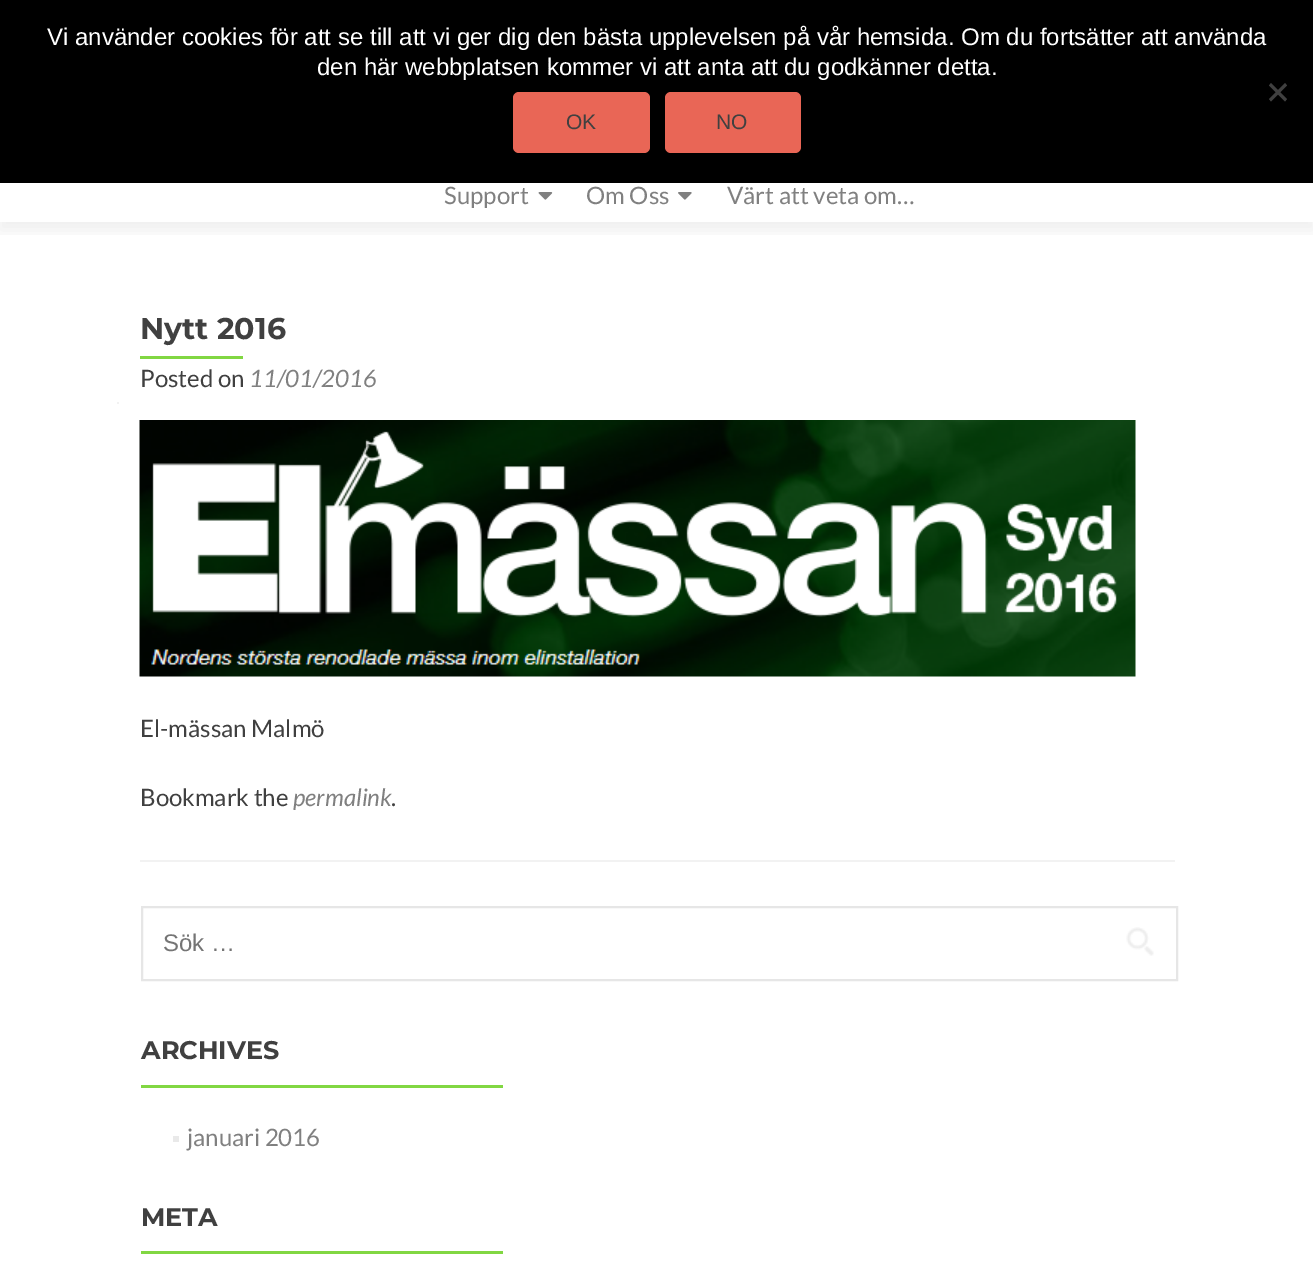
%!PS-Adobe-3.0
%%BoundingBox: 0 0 1313 1267
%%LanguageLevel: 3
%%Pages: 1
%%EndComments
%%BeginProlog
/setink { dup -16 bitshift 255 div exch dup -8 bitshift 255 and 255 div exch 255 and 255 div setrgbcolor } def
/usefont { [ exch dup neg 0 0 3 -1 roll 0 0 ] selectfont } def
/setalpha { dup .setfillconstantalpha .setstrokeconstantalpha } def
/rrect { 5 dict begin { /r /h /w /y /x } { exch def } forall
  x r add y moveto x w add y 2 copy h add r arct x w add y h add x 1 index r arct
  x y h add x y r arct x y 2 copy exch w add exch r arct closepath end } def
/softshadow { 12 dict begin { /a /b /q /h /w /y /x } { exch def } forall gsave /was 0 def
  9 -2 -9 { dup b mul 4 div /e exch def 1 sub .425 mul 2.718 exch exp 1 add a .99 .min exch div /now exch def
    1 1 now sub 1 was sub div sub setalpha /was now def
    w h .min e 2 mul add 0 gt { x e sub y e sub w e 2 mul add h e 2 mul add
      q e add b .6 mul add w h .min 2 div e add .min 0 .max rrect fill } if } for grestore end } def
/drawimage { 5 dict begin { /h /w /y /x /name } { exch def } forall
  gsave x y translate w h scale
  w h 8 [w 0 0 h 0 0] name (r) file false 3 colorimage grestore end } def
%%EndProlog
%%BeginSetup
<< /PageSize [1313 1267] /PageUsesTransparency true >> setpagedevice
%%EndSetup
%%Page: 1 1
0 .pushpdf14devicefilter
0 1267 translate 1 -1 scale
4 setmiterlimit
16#FFFFFF setink
0 0 1313 1267 rectfill
gsave
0 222 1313 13 rectclip
16#323232 setink
0 8 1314 222 0 8 0.08 softshadow
grestore
16#000000 setink
0 0 1313 183 rectfill
/LiberationSans-Regular 24 usefont
16#FFFFFF setink
47 45 moveto (Vi använder cookies för att se till att vi ger dig den bästa upplevelsen på vår hemsida. Om du fortsätter att använda) show
317 75 moveto (den här webbplatsen kommer vi att anta att du godkänner detta.) show
16#404040 setink
1285 83 moveto 1287 85.5 lineto 1271 101.5 lineto 1269 99 lineto closepath fill
1269 85.5 moveto 1271 83 lineto 1287 99 lineto 1285 101.5 lineto closepath fill
16#E96656 setink
513 92 137 61 6 rrect fill
/LiberationSans-Regular 21 usefont
16#404040 setink
566 129 moveto (OK) show
16#E96656 setink
665 92 136 61 6 rrect fill
16#404040 setink
716 129 moveto (NO) show
/Lato-Regular 24 usefont
16#808080 setink
444 204 moveto (Support) show
(img1.raw) 538 192 15 8 drawimage
586 204 moveto (Om Oss) show
(img2.raw) 678 192 14 8 drawimage
727 204 moveto (Värt att veta om…) show
16#F2F2F2 setink
140 860 1035 2 rectfill
/Montserrat-Thin 30 usefont
16#404040 setink
140 339 moveto (Nytt 2016) show
16#81D742 setink
140 356 103 3 rectfill
/Lato-Regular 24 usefont
16#404040 setink
140 387 moveto (Posted on) show
/Lato-Italic 24 usefont
16#808080 setink
249 387 moveto (11/01/2016) show
(img3.raw) 139 420 997 257 drawimage
/Lato-Regular 24 usefont
16#404040 setink
140 737 moveto (El-mässan Malmö) show
140 806 moveto (Bookmark the) show
/Lato-Italic 24 usefont
16#808080 setink
293 806 moveto (permalink) show
/Lato-Regular 24 usefont
16#404040 setink
391 806 moveto (.) show
16#F2F2F2 setink
117 402 2 2 rectfill
16#E6E6E6 setink
2 setlinewidth
142 907 1035 73 rectstroke
/LiberationSans-Regular 24 usefont
16#757575 setink
163 951 moveto (Sök …) show
(img4.raw) 1126 927 28 29 drawimage
/Montserrat-Thin 25.5 usefont
16#404040 setink
141 1059 moveto (ARCHIVES) show
16#81D742 setink
141 1085 362 3 rectfill
16#E9E9E9 setink
173 1136 6 6 rectfill
/Lato-Regular 24 usefont
16#808080 setink
187 1146 moveto (januari 2016) show
/Montserrat-Thin 25.5 usefont
16#404040 setink
141 1226 moveto (META) show
16#81D742 setink
141 1251 362 3 rectfill
.poppdf14devicefilter showpage
%%EOF
